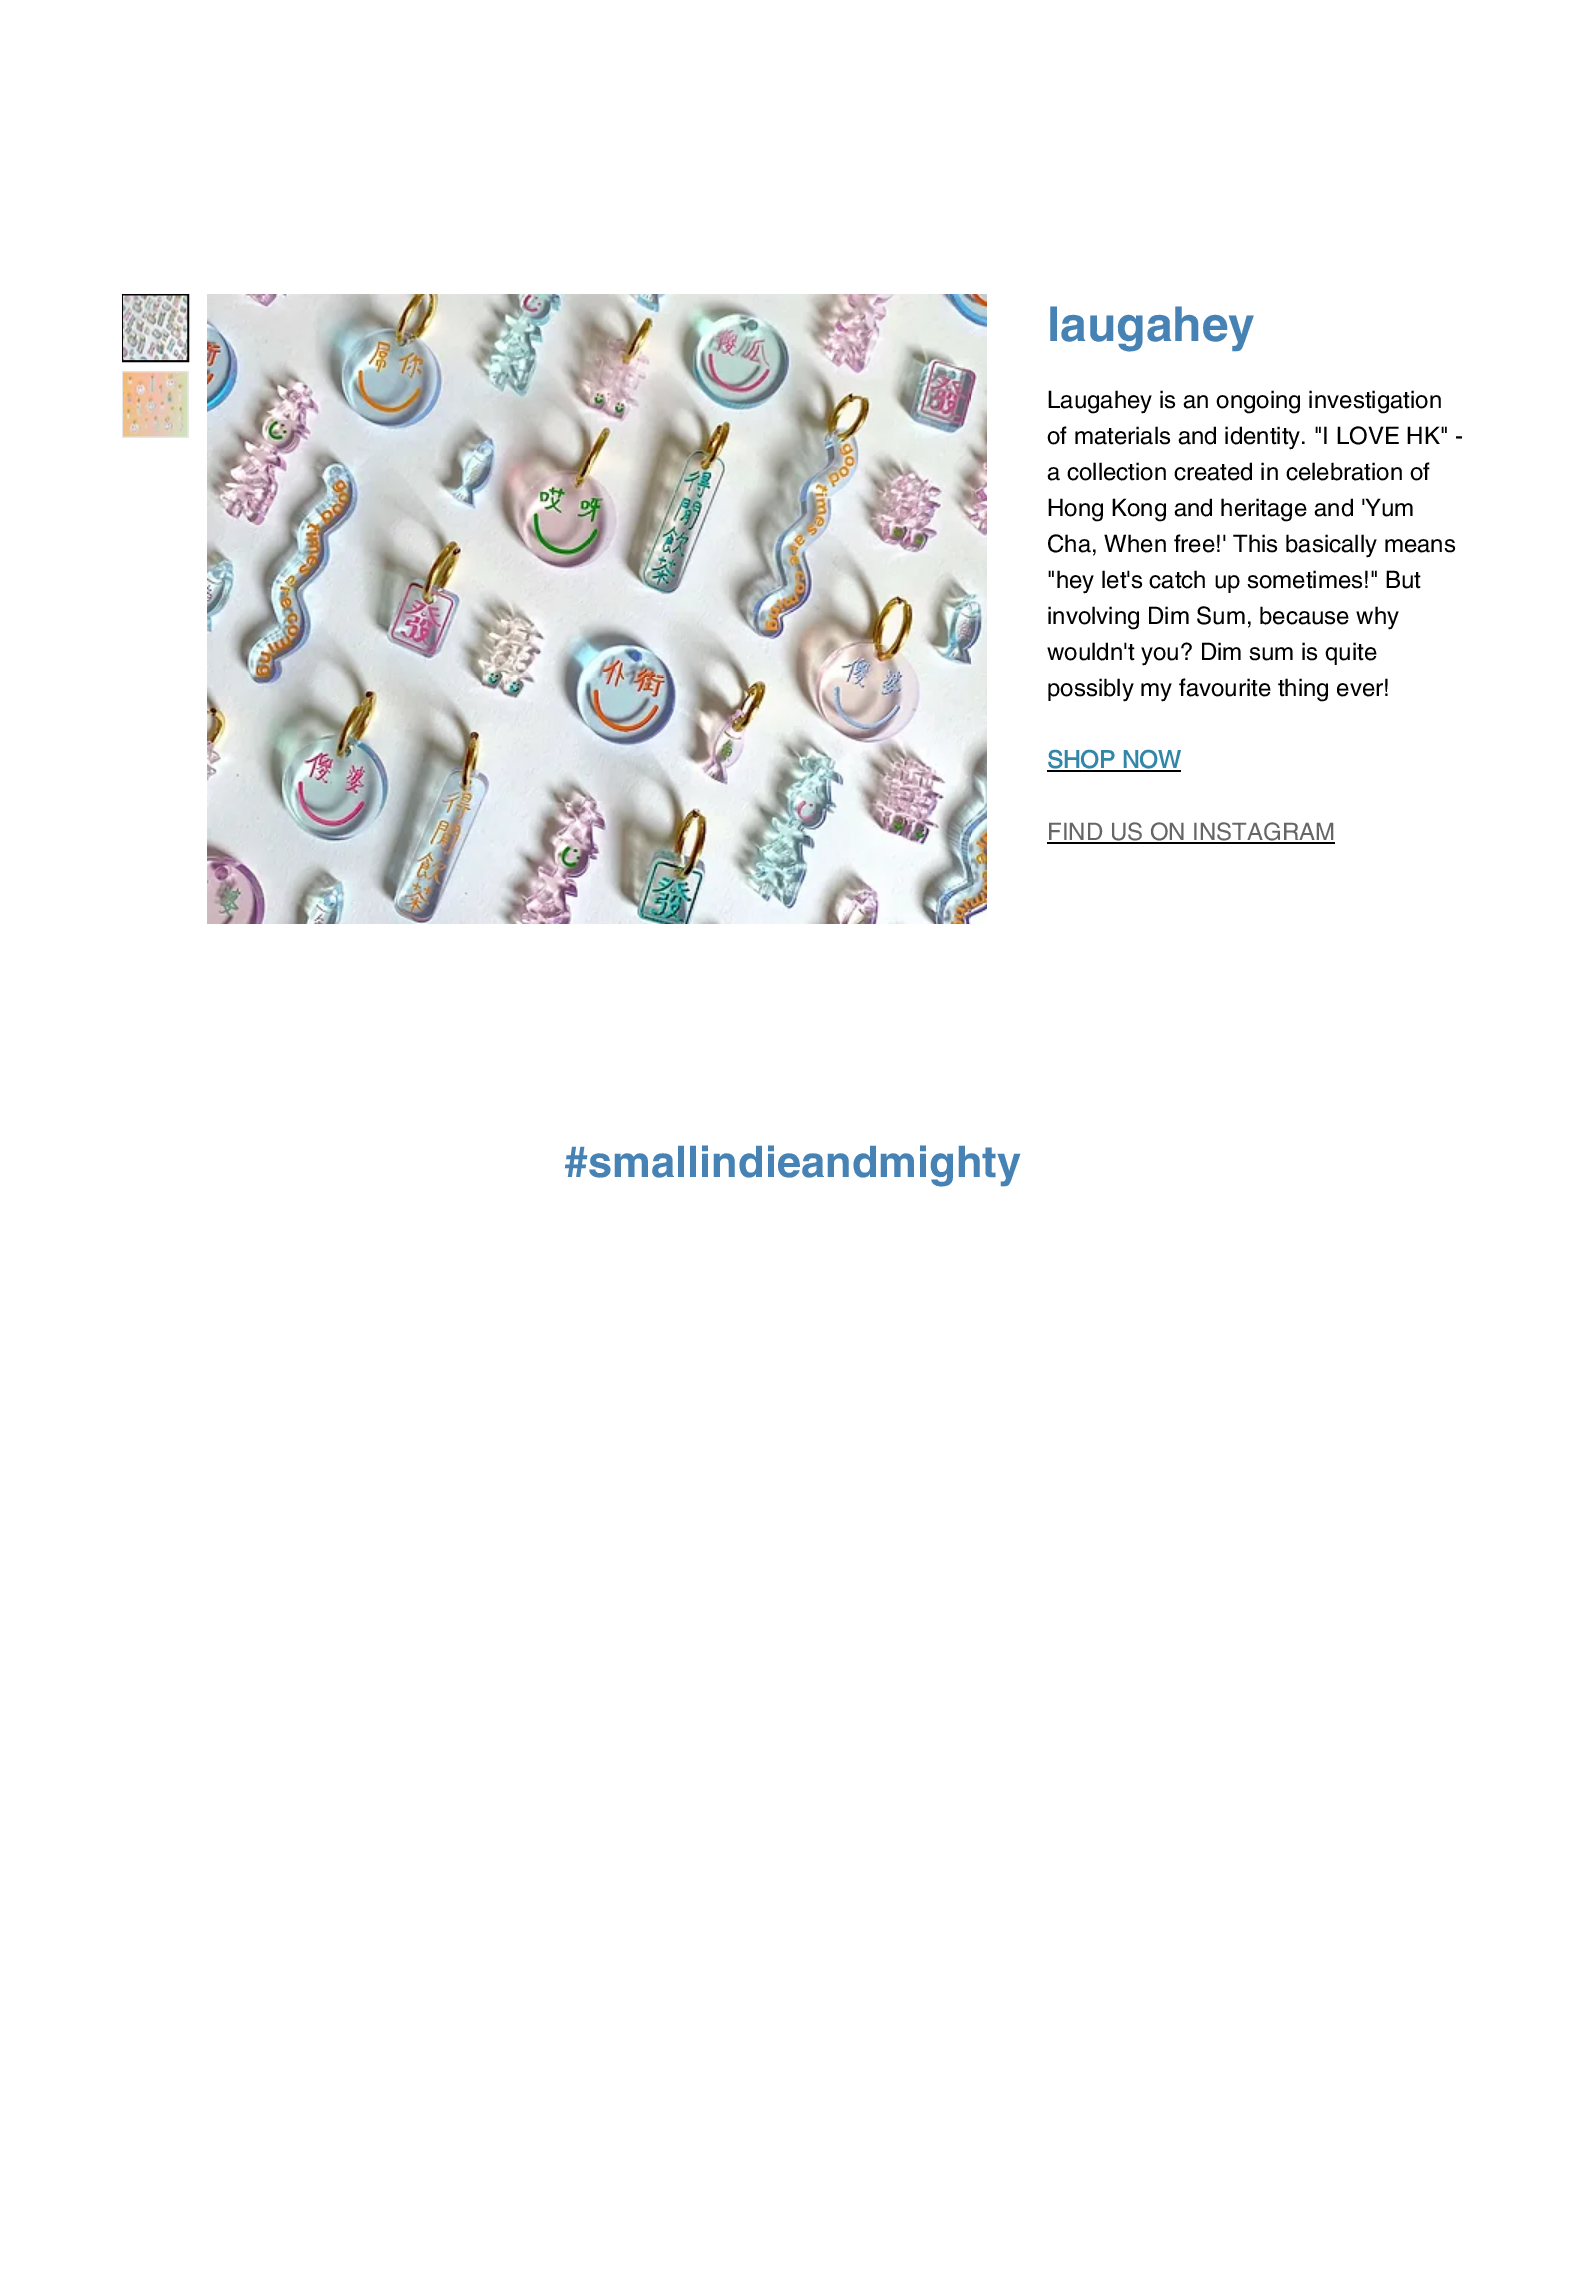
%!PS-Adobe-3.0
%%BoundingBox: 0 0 1584 2273
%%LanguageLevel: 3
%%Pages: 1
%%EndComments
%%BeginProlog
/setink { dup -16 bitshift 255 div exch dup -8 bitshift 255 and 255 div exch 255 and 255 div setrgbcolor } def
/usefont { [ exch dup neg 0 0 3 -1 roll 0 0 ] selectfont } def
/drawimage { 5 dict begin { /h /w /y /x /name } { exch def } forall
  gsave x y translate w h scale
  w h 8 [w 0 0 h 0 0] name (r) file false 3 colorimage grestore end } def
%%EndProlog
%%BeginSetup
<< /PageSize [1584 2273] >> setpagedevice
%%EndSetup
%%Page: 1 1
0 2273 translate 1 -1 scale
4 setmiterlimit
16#FFFFFF setink
0 0 1584 2273 rectfill
16#E8E6E6 setink
124 359 63 1 rectfill
16#000000 setink
2 setlinewidth
123 295 65 66 rectstroke
(img1.raw) 123 295 65 66 drawimage
16#E8E6E6 setink
122 371 67 67 rectfill
(img2.raw) 123 371 65 66 drawimage
(img3.raw) 207 294 780 630 drawimage
/helvetica-Bold 48 usefont
16#4682B4 setink
1047 341 moveto (laugahey) show
/helvetica-Regular 24 usefont
16#000000 setink
[
    [(Laugahey is an ongoing investigation) 1047 408]
    [(of materials and identity. "I LOVE HK" -) 1047 444]
    [(a collection created in celebration of) 1047 480]
    [(Hong Kong and heritage and 'Yum) 1047 516]
    [(Cha, When free!' This basically means) 1047 552]
    [("hey let's catch up sometimes!" But) 1047 588]
    [(involving Dim Sum, because why) 1047 624]
    [(wouldn't you? Dim sum is quite) 1047 660]
    [(possibly my favourite thing ever!) 1047 696]
] { aload pop moveto show } forall
/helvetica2-Bold 24 usefont
16#3287A9 setink
1047 768 moveto (SHOP NOW) show
16#000000 setink
1047 770 134 2 rectfill
/helvetica-Regular 24 usefont
16#666666 setink
1047 840 moveto (FIND US ON INSTAGRAM) show
16#000000 setink
1047 842 288 2 rectfill
/helvetica-Bold 43.5 usefont
16#4682B4 setink
564 1177 moveto (#smallindieandmighty) show
showpage
%%EOF
